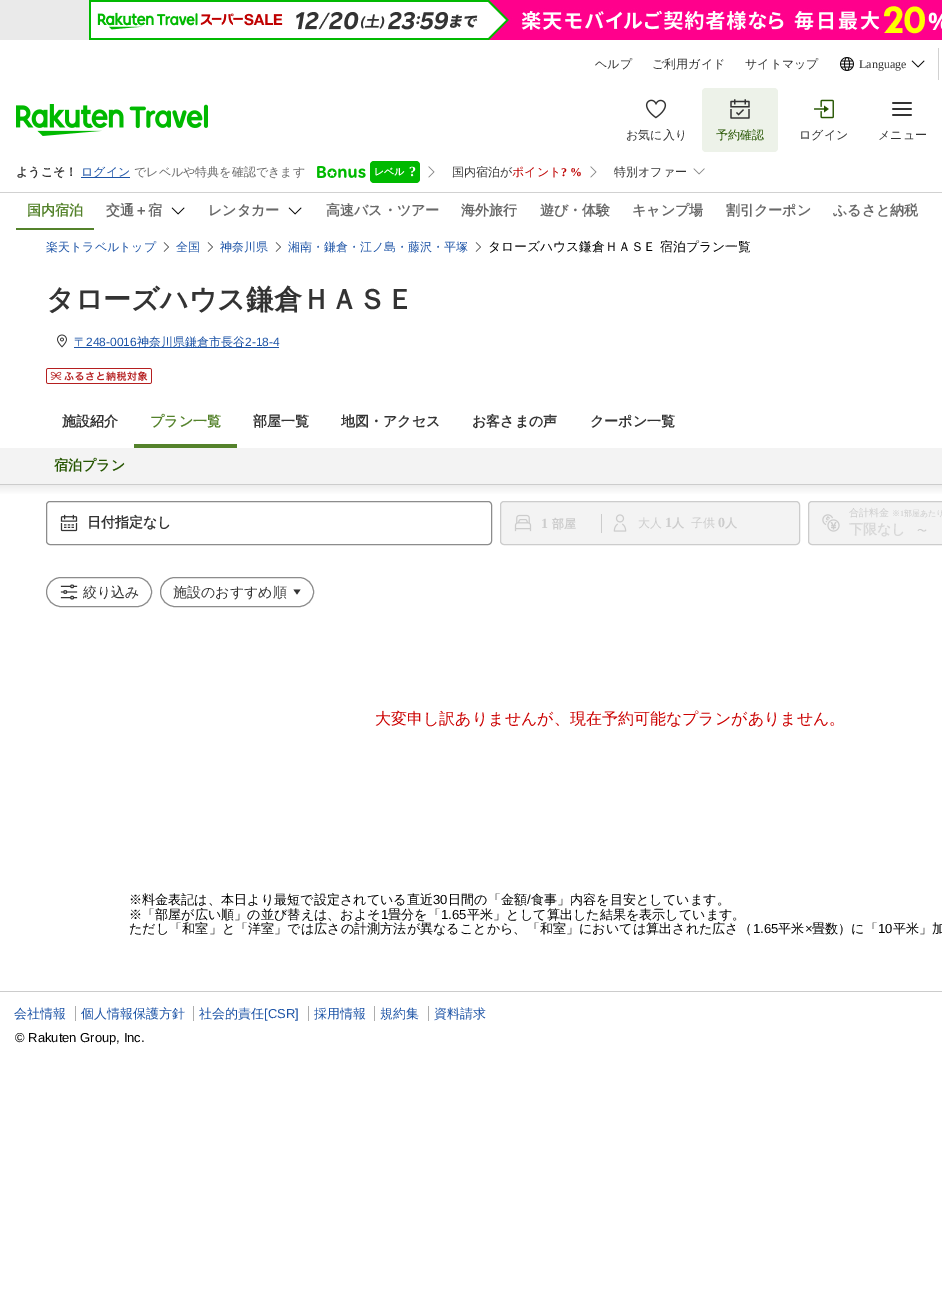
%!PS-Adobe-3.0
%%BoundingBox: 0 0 942 1297
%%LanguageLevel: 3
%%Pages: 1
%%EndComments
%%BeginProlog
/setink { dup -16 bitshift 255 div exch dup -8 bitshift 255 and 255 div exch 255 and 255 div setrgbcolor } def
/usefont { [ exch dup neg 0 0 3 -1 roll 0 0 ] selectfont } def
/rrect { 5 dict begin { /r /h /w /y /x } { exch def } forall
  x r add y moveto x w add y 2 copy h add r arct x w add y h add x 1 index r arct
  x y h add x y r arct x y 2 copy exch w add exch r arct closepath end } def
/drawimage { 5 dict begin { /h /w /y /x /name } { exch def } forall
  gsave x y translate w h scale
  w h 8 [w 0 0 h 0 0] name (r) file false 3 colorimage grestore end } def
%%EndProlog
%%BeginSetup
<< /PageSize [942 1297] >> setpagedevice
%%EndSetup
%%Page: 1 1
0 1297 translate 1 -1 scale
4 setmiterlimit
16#FFFFFF setink
0 0 942 1297 rectfill
16#EAEAEA setink
0 0 89 40 rectfill
(img1.raw) 89 0 853 40 drawimage
/WenQuanYiZenHei-Medium 12 usefont
16#333333 setink
[
    [(ヘルプ) 595 68]
    [(ご利用ガイド) 652 68]
    [(サイトマップ) 745 68]
] { aload pop moveto show } forall
(img2.raw) 840 57 14 14 drawimage
/LiberationSerif-Regular 12 usefont
859 68 moveto (Language) show
(img3.raw) 911 60 14 8 drawimage
16#D1D1D1 setink
938 48 1 32 rectfill
(img4.raw) 16 104 192 32 drawimage
(img5.raw) 645 99 22 20 drawimage
/WenQuanYiZenHei-Medium 12 usefont
16#333333 setink
626 139 moveto (お気に入り) show
16#EDF2E9 setink
702 88 76 64 4 rrect fill
(img6.raw) 730 99 20 20 drawimage
16#255500 setink
716 139 moveto (予約確認) show
(img7.raw) 814 99 20 20 drawimage
16#333333 setink
799 139 moveto (ログイン) show
(img8.raw) 892 102 20 14 drawimage
878 139 moveto (メニュー) show
/WenQuanYiZenHei-Bold 12 usefont
16 176 moveto (ようこそ！) show
16#1D54A7 setink
81 177 49 1 rectfill
/WenQuanYiZenHei-Medium 12 usefont
81 176 moveto (ログイン) show
16#686868 setink
134 176 moveto (でレベルや特典を確認できます) show
(img9.raw) 317 166 49 12 drawimage
16#00B900 setink
370 161 50 22 4 rrect fill
/WenQuanYiZenHei-Bold 10 usefont
16#FFFFFF setink
374 175 moveto (レベル) show
/LiberationSerif-Bold 14 usefont
409 176 moveto (?) show
(img10.raw) 428 166 7 12 drawimage
/WenQuanYiZenHei-Medium 12 usefont
16#333333 setink
452 176 moveto (国内宿泊が) show
16#BF0000 setink
512 176 moveto (ポイント) show
/LiberationSerif-Bold 12 usefont
561 176 moveto (? %) show
(img10.raw) 590 166 7 12 drawimage
/WenQuanYiZenHei-Medium 12 usefont
16#333333 setink
614 176 moveto (特別オファー) show
(img11.raw) 693 168 12 7 drawimage
16#D1D1D1 setink
0 192 942 1 rectfill
16#54822B setink
16 228 78 2 rectfill
/WenQuanYiZenHei-Bold 14 usefont
27 215 moveto (国内宿泊) show
16#686868 setink
106 215 moveto (交通＋宿) show
(img3.raw) 171 207 14 8 drawimage
208 215 moveto (レンタカー) show
(img3.raw) 288 207 14 8 drawimage
[
    [(高速バス・ツアー) 326 215]
    [(海外旅行) 461 215]
    [(遊び・体験) 540 215]
    [(キャンプ場) 632 215]
    [(割引クーポン) 726 215]
    [(ふるさと納税) 833 215]
] { aload pop moveto show } forall
/WenQuanYiZenHei-Medium 12 usefont
16#1D54A7 setink
46 251 moveto (楽天トラベルトップ) show
(img12.raw) 163 242 6 10 drawimage
176 251 moveto (全国) show
(img12.raw) 207 242 6 10 drawimage
220 251 moveto (神奈川県) show
(img12.raw) 275 242 6 10 drawimage
288 251 moveto (湘南・鎌倉・江ノ島・藤沢・平塚) show
(img12.raw) 475 242 6 10 drawimage
/WenQuanYiZenHei-Medium 12.8 usefont
16#000000 setink
488 251 moveto (タローズハウス鎌倉ＨＡＳＥ 宿泊プラン一覧) show
/WenQuanYiZenHei-Bold 28 usefont
16#333333 setink
46 309 moveto (タローズハウス鎌倉ＨＡＳＥ) show
(img13.raw) 57 334 10 14 drawimage
/WenQuanYiZenHei-Medium 12 usefont
16#1D54A7 setink
74 346 moveto (〒) show
74 347 205 1 rectfill
/LiberationSans-Regular 12 usefont
86 346 moveto (248-0016) show
/WenQuanYiZenHei-Medium 12 usefont
137 346 moveto (神奈川県鎌倉市長谷) show
/LiberationSans-Regular 12 usefont
245 346 moveto (2-18-4) show
(img14.raw) 46 368 106 16 drawimage
/WenQuanYiZenHei-Bold 14 usefont
16#333333 setink
62 426 moveto (施設紹介) show
16#54822B setink
134 444 103 4 rectfill
150 426 moveto (プラン一覧) show
16#333333 setink
[
    [(部屋一覧) 253 426]
    [(地図・アクセス) 341 426]
    [(お客さまの声) 472 426]
    [(クーポン一覧) 590 426]
] { aload pop moveto show } forall
gsave 0 485 moveto 942 485 lineto 942 494 lineto 0 494 lineto closepath clip newpath
<< /ShadingType 2 /ColorSpace /DeviceRGB /Coords [610 495 610 485] /Extend [true true] /Function << /FunctionType 2 /Domain [0 1] /C0 [1 1 1] /C1 [0.929 0.929 0.929] /N 1 >> >> shfill grestore
16#F3F3F3 setink
0 448 942 36 rectfill
16#CCCCCC setink
0 484 942 1 rectfill
16#255500 setink
54 470 moveto (宿泊プラン) show
16#8C8C8C setink
46.5 501.5 445 43 3.5 rrect stroke
(img15.raw) 60 514 18 18 drawimage
16#333333 setink
87 527 moveto (日付指定なし) show
16#F3F3F3 setink
500.5 501.5 299 43 3.5 rrect gsave fill grestore
16#CCCCCC setink
stroke
601 514 1 19 rectfill
(img16.raw) 514 514 18 18 drawimage
/LiberationSerif-Bold 14 usefont
541 528 moveto (1) show
/WenQuanYiZenHei-Bold 12 usefont
552 528 moveto (部屋) show
(img17.raw) 613 514 14 18 drawimage
/WenQuanYiZenHei-Medium 12 usefont
638 527 moveto (大人) show
/LiberationSerif-Bold 14 usefont
665 527 moveto (1) show
/WenQuanYiZenHei-Bold 12 usefont
672 527 moveto (人) show
/WenQuanYiZenHei-Medium 12 usefont
691 527 moveto (子供) show
/LiberationSerif-Bold 14 usefont
718 527 moveto (0) show
/WenQuanYiZenHei-Bold 12 usefont
725 527 moveto (人) show
16#F3F3F3 setink
808.5 501.5 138 43 3.5 rrect gsave fill grestore
16#CCCCCC setink
stroke
(img18.raw) 822 514 18 18 drawimage
/WenQuanYiZenHei-Medium 10 usefont
849 516 moveto (合計料金) show
/WenQuanYiZenHei-Medium 8 usefont
892 516 moveto (※) show
/LiberationSerif-Regular 8 usefont
900 516 moveto (1) show
/WenQuanYiZenHei-Medium 8 usefont
904 516 moveto (部屋あたり) show
/WenQuanYiZenHei-Bold 14 usefont
16#D8D8D8 setink
849 534 moveto (下限なし) show
/WenQuanYiZenHei-Medium 10 usefont
16#CCCCCC setink
917 534 moveto (〜) show
16#8C8C8C setink
46.5 577.5 105 29 14.5 rrect stroke
(img19.raw) 60 584 18 16 drawimage
/WenQuanYiZenHei-Medium 14 usefont
16#333333 setink
83 597 moveto (絞り込み) show
16#8C8C8C setink
160.5 577.5 153 29 14.5 rrect stroke
16#333333 setink
173 597 moveto (施設のおすすめ順) show
297 594.5 moveto 293.5 589.5 lineto 300.5 589.5 lineto closepath eofill
/WenQuanYiZenHei-Medium 16 usefont
16#CC0000 setink
375 724 moveto (大変申し訳ありませんが、現在予約可能なプランがありません。) show
/WenQuanYiZenHei-Medium 13.1 usefont
16#000000 setink
129 904 moveto (※料金表記は、本日より最短で設定されている直近) show
/LiberationSans-Regular 13.1 usefont
433 904 moveto (30) show
/WenQuanYiZenHei-Medium 13.1 usefont
448 904 moveto (日間の「金額) show
/LiberationSans-Regular 13.1 usefont
527 904 moveto (/) show
/WenQuanYiZenHei-Medium 13.1 usefont
531 904 moveto (食事」内容を目安としています。) show
129 919 moveto (※「部屋が広い順」の並び替えは、およそ) show
/LiberationSans-Regular 13.1 usefont
381 919 moveto (1) show
/WenQuanYiZenHei-Medium 13.1 usefont
388 919 moveto (畳分を「) show
/LiberationSans-Regular 13.1 usefont
441 919 moveto (1.65) show
/WenQuanYiZenHei-Medium 13.1 usefont
467 919 moveto (平米」として算出した結果を表示しています。) show
129 933 moveto (ただし「和室」と「洋室」では広さの計測方法が異なることから、「和室」においては算出された広さ（) show
/LiberationSans-Regular 13.1 usefont
753 933 moveto (1.65) show
/WenQuanYiZenHei-Medium 13.1 usefont
778 933 moveto (平米) show
/LiberationSans-Regular 13.1 usefont
805 933 moveto (×) show
/WenQuanYiZenHei-Medium 13.1 usefont
812 933 moveto (畳数）に「) show
/LiberationSans-Regular 13.1 usefont
878 933 moveto (10) show
/WenQuanYiZenHei-Medium 13.1 usefont
893 933 moveto (平米」加) show
16#CCCCCC setink
0 991 942 1 rectfill
/WenQuanYiZenHei-Medium 13 usefont
16#1D54A7 setink
14 1018 moveto (会社情報) show
81 1018 moveto (個人情報保護方針) show
16#ADADAD setink
75 1006 1 15 rectfill
16#1D54A7 setink
199 1018 moveto (社会的責任) show
16#ADADAD setink
193 1006 1 15 rectfill
/LiberationSans-Regular 13 usefont
16#1D54A7 setink
264 1018 moveto ([CSR]) show
/WenQuanYiZenHei-Medium 13 usefont
314 1018 moveto (採用情報) show
16#ADADAD setink
308 1006 1 15 rectfill
16#1D54A7 setink
380 1018 moveto (規約集) show
16#ADADAD setink
374 1006 1 15 rectfill
16#1D54A7 setink
434 1018 moveto (資料請求) show
16#ADADAD setink
428 1006 1 15 rectfill
/LiberationSans-Regular 13 usefont
16#000000 setink
15 1042 moveto (© Rakuten Group, Inc.) show
showpage
%%EOF
